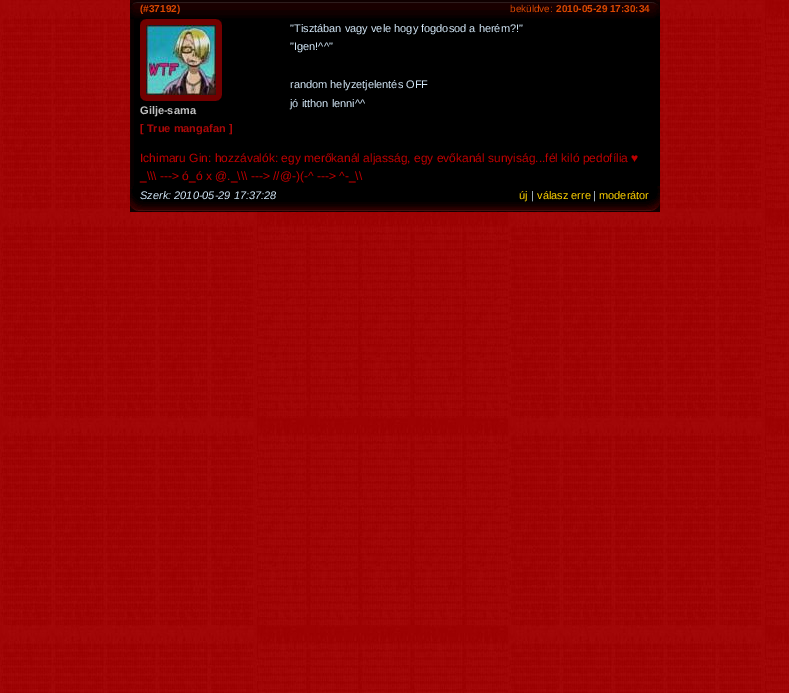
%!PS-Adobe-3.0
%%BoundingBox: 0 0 789 693
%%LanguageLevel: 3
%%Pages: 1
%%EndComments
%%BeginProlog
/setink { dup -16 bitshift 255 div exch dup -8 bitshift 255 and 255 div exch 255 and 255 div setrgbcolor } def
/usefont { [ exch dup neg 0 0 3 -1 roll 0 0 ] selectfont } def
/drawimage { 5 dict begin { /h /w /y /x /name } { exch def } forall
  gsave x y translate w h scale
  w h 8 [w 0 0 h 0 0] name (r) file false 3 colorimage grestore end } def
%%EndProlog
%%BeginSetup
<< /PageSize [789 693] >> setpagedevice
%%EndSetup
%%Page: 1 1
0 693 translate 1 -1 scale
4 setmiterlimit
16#FFFFFF setink
0 0 789 693 rectfill
(img1.raw) 0 0 789 693 drawimage
(img2.raw) 130 0 530 19 drawimage
/LiberationSans-Bold 10 usefont
16#DA4800 setink
140 12 moveto (\(#37192\)) show
/LiberationSans-Regular 10 usefont
510 12 moveto (beküldve:) show
/LiberationSans-Bold 10 usefont
556 12 moveto (2010-05-29 17:30:34) show
(img3.raw) 130 19 530 167 drawimage
/LiberationSans-Regular 11 usefont
16#D3E7F7 setink
[
    [("Tisztában vagy vele hogy fogdosod a herém?!") 290 32]
    [("Igen!^^") 290 50]
    [(random helyzetjelentés OFF) 290 88]
    [(jó itthon lenni^^) 290 107]
] { aload pop moveto show } forall
(img4.raw) 140 19 82 82 drawimage
(img5.raw) 146 25 70 70 drawimage
/LiberationSans-Bold 11 usefont
16#C0C0C0 setink
140 114 moveto (Gilje-sama) show
16#A90808 setink
140 132 moveto ([ True mangafan ]) show
/LiberationSans-Regular 12 usefont
16#BF0000 setink
140 162 moveto (Ichimaru Gin: hozzávalók: egy merőkanál aljasság, egy evőkanál sunyiság...fél kiló pedofília ♥) show
140 180 moveto (_\\\\\\ ---> ó_ó x @._\\\\\\ ---> //@-\)\(-^ ---> ^-_\\\\) show
(img6.raw) 130 186 530 26 drawimage
/LiberationSans-Italic 11 usefont
16#D3E7F7 setink
140 199 moveto (Szerk: 2010-05-29 17:37:28) show
/LiberationSans-Regular 11 usefont
16#FFD200 setink
519 199 moveto (új) show
16#D3E7F7 setink
531 199 moveto (|) show
16#FFD200 setink
537 199 moveto (válasz erre) show
16#D3E7F7 setink
593 199 moveto (|) show
16#FFD200 setink
599 199 moveto (moderátor) show
showpage
%%EOF
